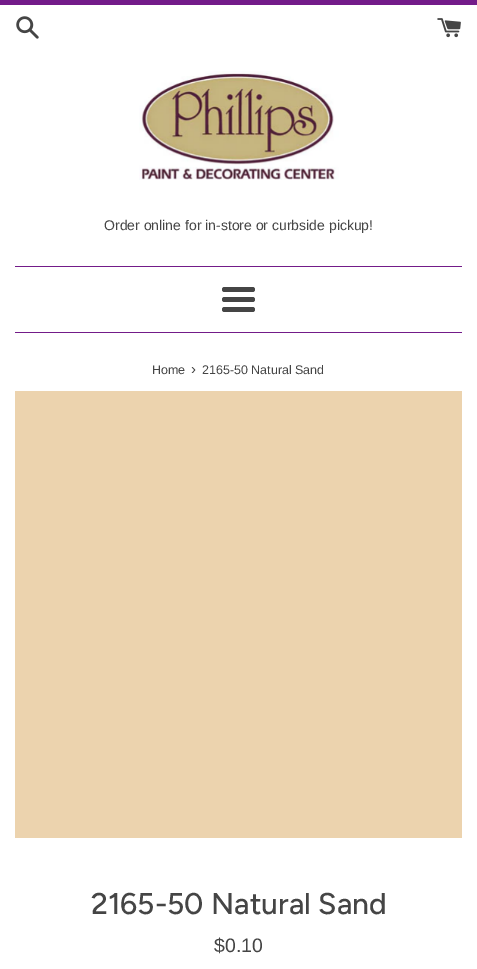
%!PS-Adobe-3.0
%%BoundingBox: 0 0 477 969
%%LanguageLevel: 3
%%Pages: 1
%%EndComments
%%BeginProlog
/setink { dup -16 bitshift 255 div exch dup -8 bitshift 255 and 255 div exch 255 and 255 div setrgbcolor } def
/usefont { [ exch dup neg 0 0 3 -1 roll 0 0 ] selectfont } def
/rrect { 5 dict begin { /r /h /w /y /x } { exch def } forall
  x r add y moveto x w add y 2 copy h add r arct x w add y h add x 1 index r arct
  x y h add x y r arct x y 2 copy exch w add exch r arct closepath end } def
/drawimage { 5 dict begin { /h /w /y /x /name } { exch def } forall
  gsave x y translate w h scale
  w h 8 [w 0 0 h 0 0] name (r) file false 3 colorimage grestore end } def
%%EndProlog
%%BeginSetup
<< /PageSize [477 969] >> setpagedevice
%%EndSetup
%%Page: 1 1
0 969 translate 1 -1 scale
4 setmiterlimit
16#FFFFFF setink
0 0 477 969 rectfill
16#731B89 setink
0 0 477 5 rectfill
(img1.raw) 16 16 23 23 drawimage
(img2.raw) 437 18 24 20 drawimage
(img3.raw) 139 71 200 109 drawimage
/LiberationSans-Regular 14 usefont
16#454545 setink
104 230 moveto (Order online for in-store or curbside pickup!) show
16#731B89 setink
15 266 447 1 rectfill
16#454545 setink
222 287 33 5 2.5 rrect fill
222 297 33 5 2.5 rrect fill
222 307 33 5 2.5 rrect fill
16#731B89 setink
15 332 447 1 rectfill
/LiberationSans-Regular 12.5 usefont
16#454545 setink
152 374 moveto (Home) show
/LiberationSans-Regular 15 usefont
191 374 moveto (›) show
/LiberationSans-Regular 12.5 usefont
202 374 moveto (2165-50 Natural Sand) show
16#ECD3AE setink
15 391 447 447 rectfill
/Figtree-Medium 30 usefont
16#454545 setink
91 914 moveto (2165-50 Natural Sand) show
/LiberationSans-Regular 19.5 usefont
214 952 moveto ($0.10) show
showpage
%%EOF
